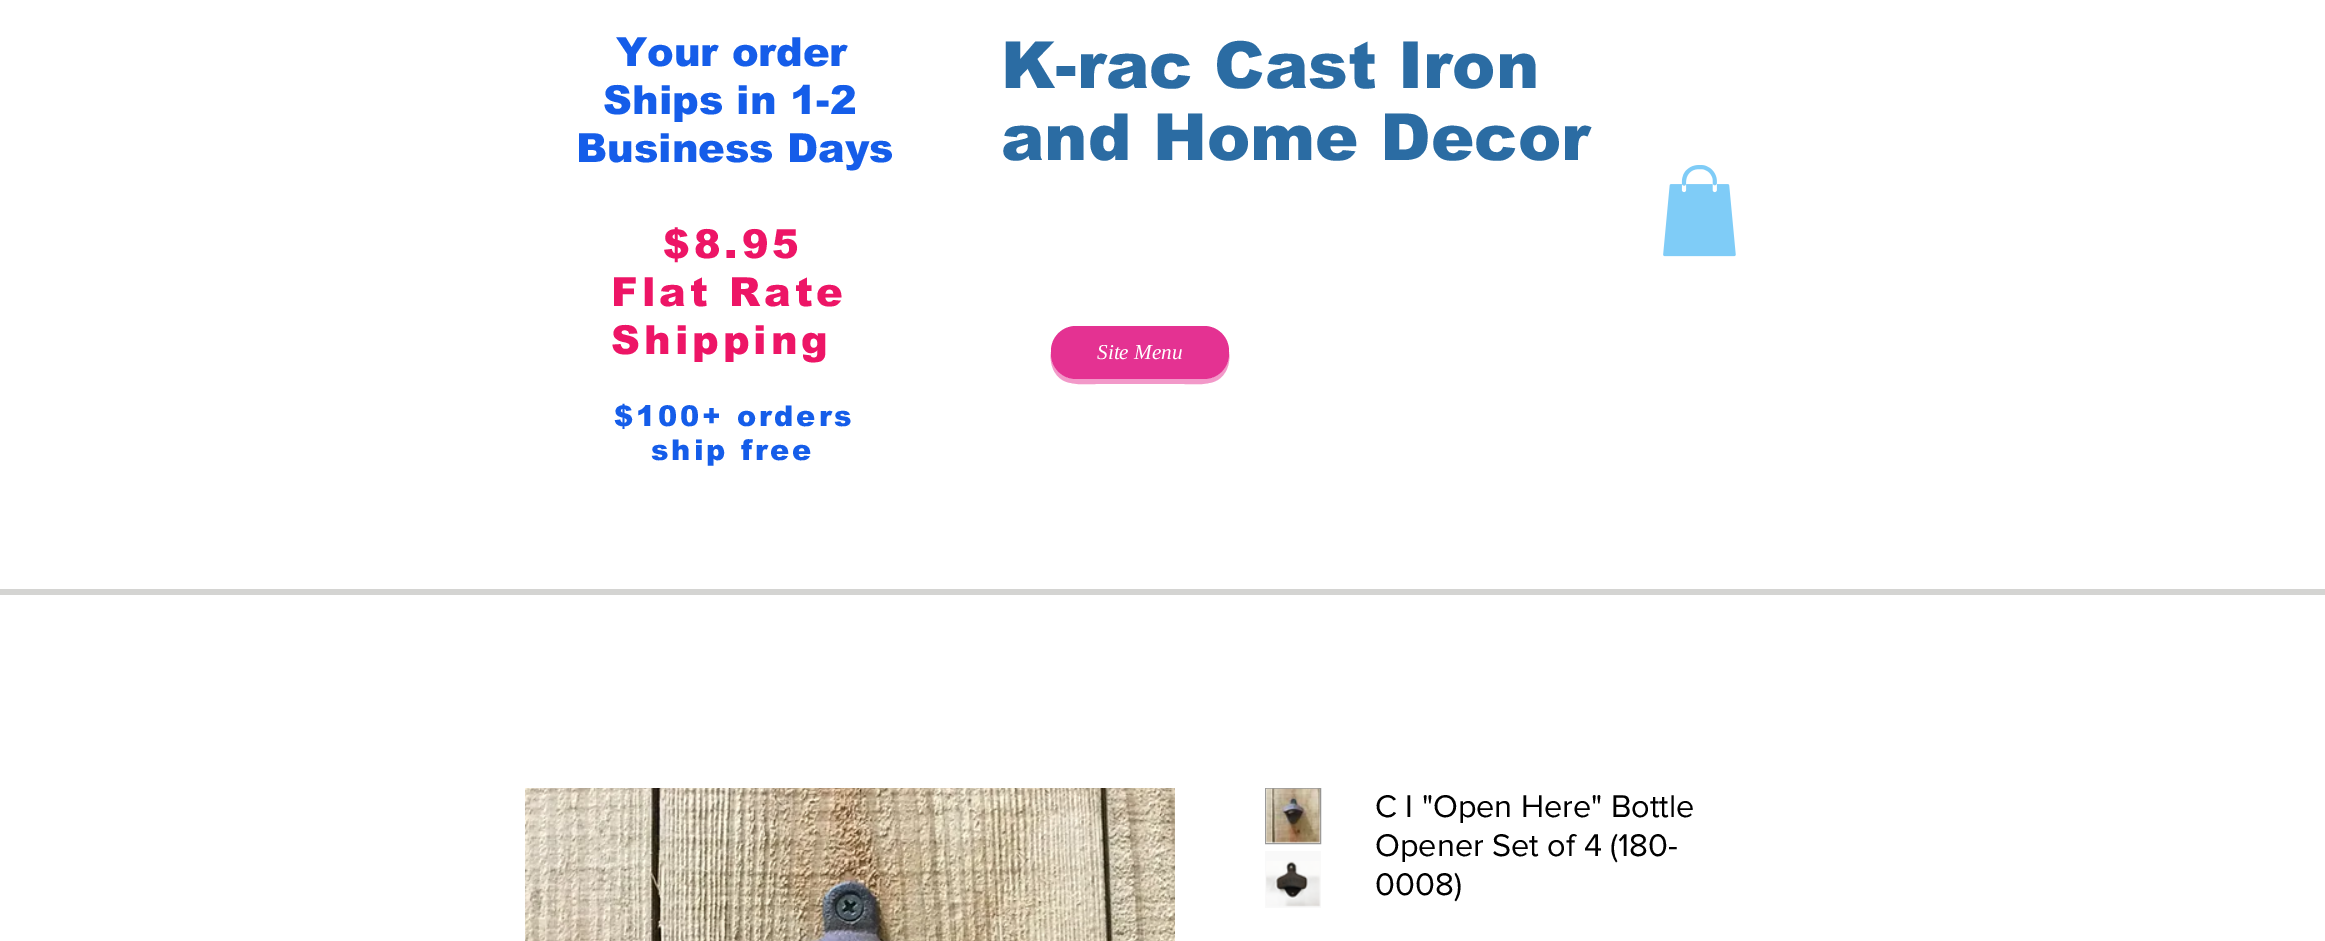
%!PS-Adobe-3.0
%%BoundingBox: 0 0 2325 941
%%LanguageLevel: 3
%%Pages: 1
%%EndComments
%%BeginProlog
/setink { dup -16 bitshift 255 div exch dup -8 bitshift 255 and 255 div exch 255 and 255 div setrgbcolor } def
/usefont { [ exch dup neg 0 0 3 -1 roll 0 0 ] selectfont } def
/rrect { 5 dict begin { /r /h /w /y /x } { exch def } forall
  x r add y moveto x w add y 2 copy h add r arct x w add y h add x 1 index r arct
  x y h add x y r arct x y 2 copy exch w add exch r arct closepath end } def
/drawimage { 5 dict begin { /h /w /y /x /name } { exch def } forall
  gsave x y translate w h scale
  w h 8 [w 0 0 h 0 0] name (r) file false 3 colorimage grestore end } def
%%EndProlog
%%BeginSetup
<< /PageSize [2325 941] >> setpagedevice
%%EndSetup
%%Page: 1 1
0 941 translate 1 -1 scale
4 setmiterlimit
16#FFFFFF setink
0 0 2325 941 rectfill
/arial-Black 40 usefont
16#155DE9 setink
[
    [(Your order) 616 66]
    [(Ships in 1-2) 603 114]
    [(Business Days) 576 162]
] { aload pop moveto show } forall
16#ED1566 setink
663 258 moveto 4 0 ($8.95) ashow
611 306 moveto 4 0 (Flat Rate) ashow
611 354 moveto 4 0 (Shipping) ashow
/arial-Black 28.75 usefont
16#155DE9 setink
614 426 moveto 2.9 0 ($100+ orders) ashow
651 460 moveto 2.9 0 (ship free) ashow
/arial-Black 65 usefont
16#2B6CA3 setink
1001 88 moveto (K-rac Cast Iron) show
1001 160 moveto (and Home Decor) show
(img1.raw) 1663 165 73 92 drawimage
16#F299C9 setink
1051 352 moveto 1049 366 1056 381 1071 383 curveto 1080 385 1089 384 1097 384 curveto 1183 384 lineto 1191 384 1200 385 1209 383 curveto 1224 381 1231 366 1229 352 curveto 1229 354 lineto 1229 368 1218 379 1204 379 curveto 1076 379 lineto 1062 379 1051 368 1051 354 curveto closepath fill
16#E43292 setink
1051 326 178 53 25 rrect fill
/LiberationSerif-Italic 21.25 usefont
16#FFFFFF setink
1097 359 moveto (Site Menu) show
16#D4D4D2 setink
0 589 2325 6 rectfill
(img2.raw) 525 788 650 153 drawimage
16#F9F9F9 setink
1265.5 788.5 moveto 1320.5 788.5 lineto 1320.5 843.5 lineto 1265.5 843.5 lineto closepath gsave fill grestore
16#9A9A9A setink
stroke
(img3.raw) 1266 788 55 55 drawimage
16#F9F9F9 setink
1265 851 56 57 rectfill
(img4.raw) 1266 861 55 46 drawimage
/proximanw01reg-Regular 32.5 usefont
16#000000 setink
[
    [(C I "Open Here" Bottle) 1375 817]
    [(Opener Set of 4 \(180-) 1375 856]
    [(0008\)) 1375 895]
] { aload pop moveto show } forall
showpage
%%EOF
